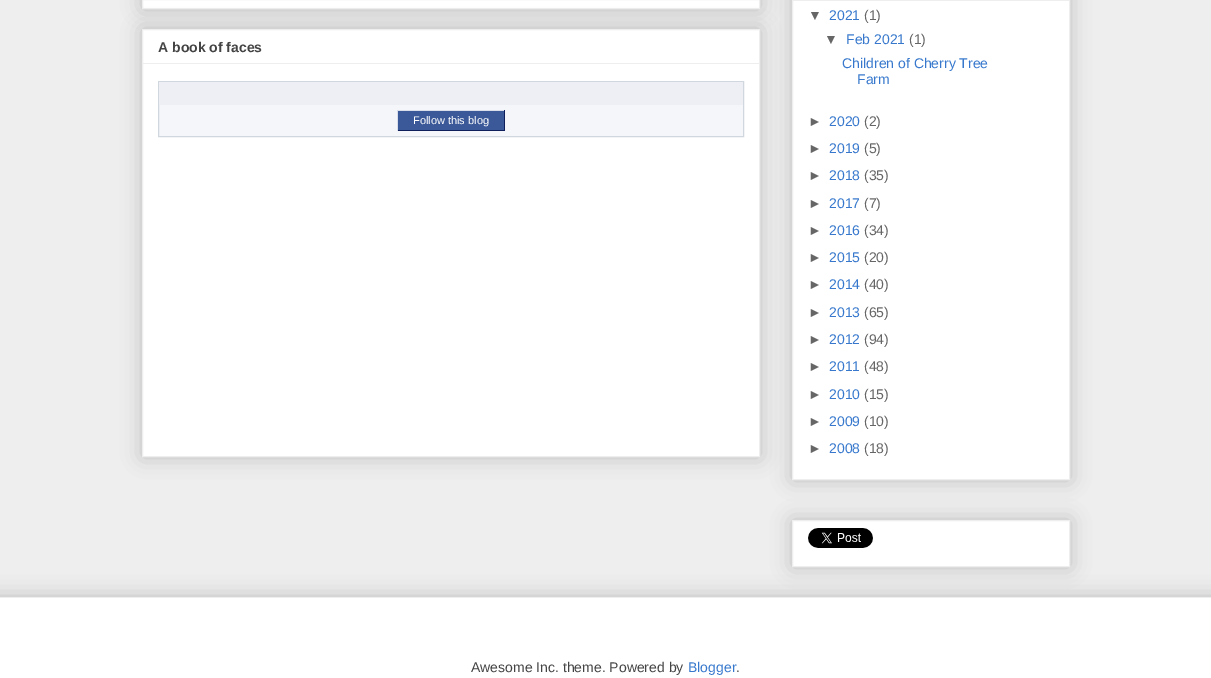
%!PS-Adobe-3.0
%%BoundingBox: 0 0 1211 678
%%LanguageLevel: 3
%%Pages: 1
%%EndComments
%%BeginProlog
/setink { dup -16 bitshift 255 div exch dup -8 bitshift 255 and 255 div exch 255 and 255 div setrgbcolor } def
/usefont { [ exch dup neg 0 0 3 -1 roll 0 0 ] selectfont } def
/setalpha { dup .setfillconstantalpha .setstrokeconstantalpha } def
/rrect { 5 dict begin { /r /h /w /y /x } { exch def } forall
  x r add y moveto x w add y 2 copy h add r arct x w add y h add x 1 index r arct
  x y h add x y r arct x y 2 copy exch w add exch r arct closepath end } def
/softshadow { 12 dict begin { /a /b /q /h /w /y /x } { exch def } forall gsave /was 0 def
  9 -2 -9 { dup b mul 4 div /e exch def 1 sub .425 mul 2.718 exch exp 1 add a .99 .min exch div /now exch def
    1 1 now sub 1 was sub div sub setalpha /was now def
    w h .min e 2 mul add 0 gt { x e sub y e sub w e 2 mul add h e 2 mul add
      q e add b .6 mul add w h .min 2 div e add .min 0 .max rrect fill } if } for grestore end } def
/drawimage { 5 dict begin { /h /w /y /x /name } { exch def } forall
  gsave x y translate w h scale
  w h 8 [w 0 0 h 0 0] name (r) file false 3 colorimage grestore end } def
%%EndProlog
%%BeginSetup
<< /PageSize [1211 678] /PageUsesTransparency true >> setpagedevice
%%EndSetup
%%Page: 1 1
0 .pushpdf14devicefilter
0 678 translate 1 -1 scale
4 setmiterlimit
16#EEEEEE setink
0 0 1211 678 rectfill
16#000000 setink
142 -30 618 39 0 10 0.2 softshadow
16#FFFFFF setink
142.5 -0.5 moveto 759.5 -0.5 lineto 759.5 8.5 lineto 142.5 8.5 lineto closepath gsave fill grestore
16#EEEEEE setink
stroke
16#000000 setink
142 29 618 428 0 10 0.2 softshadow
16#FFFFFF setink
142.5 29.5 moveto 759.5 29.5 lineto 759.5 456.5 lineto 142.5 456.5 lineto closepath gsave fill grestore
16#EEEEEE setink
stroke
/LiberationSans-Bold 14 usefont
16#444444 setink
158 52 moveto (A book of faces) show
16#EEEEEE setink
143 63 616 1 rectfill
16#F5F6F9 setink
159 105 584 31 rectfill
16#D1D7DF setink
158.5 81.5 585 55 rectstroke
[
    [159 82 584 23 16#EDEFF4]
    [398 111 106 19 16#3B5998]
    [397 110 108 1 16#D9DFEA]
    [504 110 1 21 16#0E1F5B]
    [397 130 108 1 16#0E1F5B]
    [397 110 1 21 16#D9DFEA]
] { aload pop setink rectfill } forall
/LiberationSans-Regular 11 usefont
16#FFFFFF setink
413 124 moveto (Follow this blog) show
16#000000 setink
792 -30 278 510 0 10 0.2 softshadow
16#FFFFFF setink
793 1 276 478 rectfill
16#EEEEEE setink
792.5 -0.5 277 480 rectstroke
793 0 276 1 rectfill
/LiberationSans-Regular 14 usefont
16#666666 setink
808 20 moveto (▼) show
16#3778CD setink
829 20 moveto (2021) show
16#666666 setink
864 20 moveto (\(1\)) show
824 44 moveto (▼) show
16#3778CD setink
846 44 moveto (Feb 2021) show
16#666666 setink
909 44 moveto (\(1\)) show
16#3778CD setink
842 68 moveto (Children of Cherry Tree) show
857 84 moveto (Farm) show
16#666666 setink
808 126 moveto (►) show
16#3778CD setink
829 126 moveto (2020) show
16#666666 setink
864 126 moveto (\(2\)) show
808 153 moveto (►) show
16#3778CD setink
829 153 moveto (2019) show
16#666666 setink
864 153 moveto (\(5\)) show
808 180 moveto (►) show
16#3778CD setink
829 180 moveto (2018) show
16#666666 setink
864 180 moveto (\(35\)) show
808 208 moveto (►) show
16#3778CD setink
829 208 moveto (2017) show
16#666666 setink
864 208 moveto (\(7\)) show
808 235 moveto (►) show
16#3778CD setink
829 235 moveto (2016) show
16#666666 setink
864 235 moveto (\(34\)) show
808 262 moveto (►) show
16#3778CD setink
829 262 moveto (2015) show
16#666666 setink
864 262 moveto (\(20\)) show
808 289 moveto (►) show
16#3778CD setink
829 289 moveto (2014) show
16#666666 setink
864 289 moveto (\(40\)) show
808 317 moveto (►) show
16#3778CD setink
829 317 moveto (2013) show
16#666666 setink
864 317 moveto (\(65\)) show
808 344 moveto (►) show
16#3778CD setink
829 344 moveto (2012) show
16#666666 setink
864 344 moveto (\(94\)) show
808 371 moveto (►) show
16#3778CD setink
829 371 moveto (2011) show
16#666666 setink
864 371 moveto (\(48\)) show
808 399 moveto (►) show
16#3778CD setink
829 399 moveto (2010) show
16#666666 setink
864 399 moveto (\(15\)) show
808 426 moveto (►) show
16#3778CD setink
829 426 moveto (2009) show
16#666666 setink
864 426 moveto (\(10\)) show
808 453 moveto (►) show
16#3778CD setink
829 453 moveto (2008) show
16#666666 setink
864 453 moveto (\(18\)) show
16#000000 setink
792 520 278 47 0 10 0.2 softshadow
16#FFFFFF setink
792.5 520.5 moveto 1069.5 520.5 lineto 1069.5 566.5 lineto 792.5 566.5 lineto closepath gsave fill grestore
16#EEEEEE setink
stroke
(img1.raw) 808 528 65 20 drawimage
16#000000 setink
-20 597 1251 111 0 10 0.2 softshadow
16#FFFFFF setink
0 598 1211 80 rectfill
16#EEEEEE setink
0 597 1211 1 rectfill
16#444444 setink
471 672 moveto (Awesome Inc. theme. Powered by) show
16#3778CD setink
688 672 moveto (Blogger) show
16#444444 setink
736 672 moveto (.) show
.poppdf14devicefilter showpage
%%EOF
